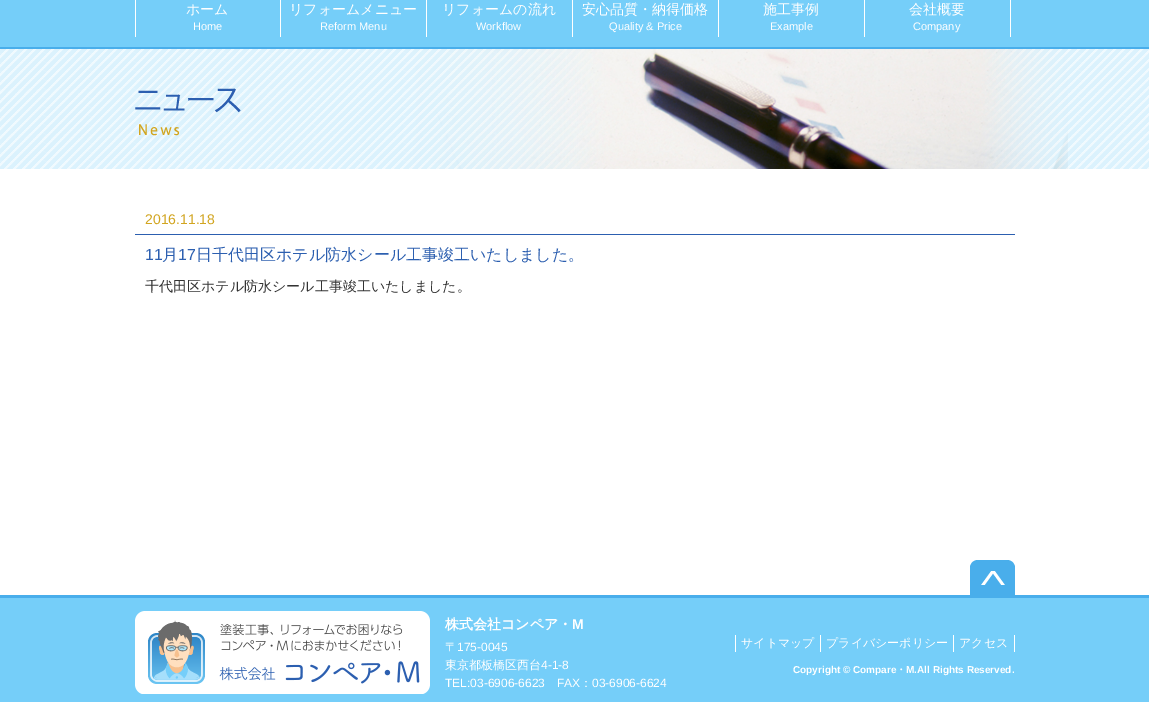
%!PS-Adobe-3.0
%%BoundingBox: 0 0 1149 702
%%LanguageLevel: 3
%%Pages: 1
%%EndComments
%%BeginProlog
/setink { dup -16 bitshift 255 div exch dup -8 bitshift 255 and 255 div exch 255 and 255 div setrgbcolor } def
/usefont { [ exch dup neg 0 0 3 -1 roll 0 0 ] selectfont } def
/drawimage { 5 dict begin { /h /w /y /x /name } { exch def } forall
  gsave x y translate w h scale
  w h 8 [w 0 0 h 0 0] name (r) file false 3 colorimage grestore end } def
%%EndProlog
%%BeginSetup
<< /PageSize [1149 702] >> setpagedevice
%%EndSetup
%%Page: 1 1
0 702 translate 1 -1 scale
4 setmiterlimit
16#FFFFFF setink
0 0 1149 702 rectfill
[
    [0 0 1149 47 16#75CEF9]
    [0 47 1149 2 16#49AEEB]
    [280 0 1 37 16#FFFFFF]
    [135 0 1 37 16#FFFFFF]
] { aload pop setink rectfill } forall
/WenQuanYiZenHei-Medium 14 usefont
186 14 moveto (ホーム) show
/LiberationSans-Regular 11 usefont
193 30 moveto (Home) show
426 0 1 37 rectfill
/WenQuanYiZenHei-Medium 14 usefont
289 14 moveto (リフォームメニュー) show
/LiberationSans-Regular 11 usefont
320 30 moveto (Reform Menu) show
572 0 1 37 rectfill
/WenQuanYiZenHei-Medium 14 usefont
442 14 moveto (リフォームの流れ) show
/LiberationSans-Regular 11 usefont
476 30 moveto (Workflow) show
718 0 1 37 rectfill
/WenQuanYiZenHei-Medium 14 usefont
582 14 moveto (安心品質・納得価格) show
/LiberationSans-Regular 11 usefont
609 30 moveto (Quality & Price) show
864 0 1 37 rectfill
/WenQuanYiZenHei-Medium 14 usefont
763 14 moveto (施工事例) show
/LiberationSans-Regular 11 usefont
770 30 moveto (Example) show
1010 0 1 37 rectfill
/WenQuanYiZenHei-Medium 14 usefont
909 14 moveto (会社概要) show
/LiberationSans-Regular 11 usefont
913 30 moveto (Company) show
(img1.raw) 0 49 1149 120 drawimage
(img2.raw) 135 49 933 120 drawimage
/LiberationSans-Regular 14 usefont
16#D2A51F setink
145 224 moveto (2016.11.18) show
16#2C5FB0 setink
135 234 880 1 rectfill
/LiberationSans-Regular 16 usefont
145 260 moveto (11) show
/WenQuanYiZenHei-Medium 16 usefont
162 260 moveto (月) show
/LiberationSans-Regular 16 usefont
178 260 moveto (17) show
/WenQuanYiZenHei-Medium 16 usefont
196 260 moveto (日千代田区ホテル防水シール工事竣工いたしました。) show
/WenQuanYiZenHei-Medium 14 usefont
16#333333 setink
145 291 moveto (千代田区ホテル防水シール工事竣工いたしました。) show
16#75CEF9 setink
0 598 1149 104 rectfill
16#49AEEB setink
0 595 1149 3 rectfill
(img3.raw) 970 560 45 35 drawimage
(img4.raw) 135 611 295 83 drawimage
/WenQuanYiZenHei-Bold 14 usefont
16#FFFFFF setink
445 629 moveto (株式会社コンペア・) show
/LiberationSans-Bold 14 usefont
572 629 moveto (M) show
/WenQuanYiZenHei-Medium 12 usefont
445 651 moveto (〒) show
/LiberationSans-Regular 12 usefont
457 651 moveto (175-0045) show
/WenQuanYiZenHei-Medium 12 usefont
445 669 moveto (東京都板橋区西台) show
/LiberationSans-Regular 12 usefont
[
    [(4-1-8) 541 669]
    [(TEL:03-6906-6623) 445 687]
    [(FAX) 557 687]
] { aload pop moveto show } forall
/WenQuanYiZenHei-Medium 12 usefont
580 687 moveto (：) show
/LiberationSans-Regular 12 usefont
592 687 moveto (03-6906-6624) show
820 635 1 17 rectfill
735 635 1 17 rectfill
/WenQuanYiZenHei-Medium 12 usefont
741 647 moveto (サイトマップ) show
953 635 1 17 rectfill
826 647 moveto (プライバシーポリシー) show
1014 635 1 17 rectfill
959 647 moveto (アクセス) show
/LiberationSans-Bold 10 usefont
793 673 moveto (Copyright © Compare) show
/WenQuanYiZenHei-Bold 10 usefont
896 673 moveto (・) show
/LiberationSans-Bold 10 usefont
906 673 moveto (M.All Rights Reserved.) show
showpage
%%EOF
